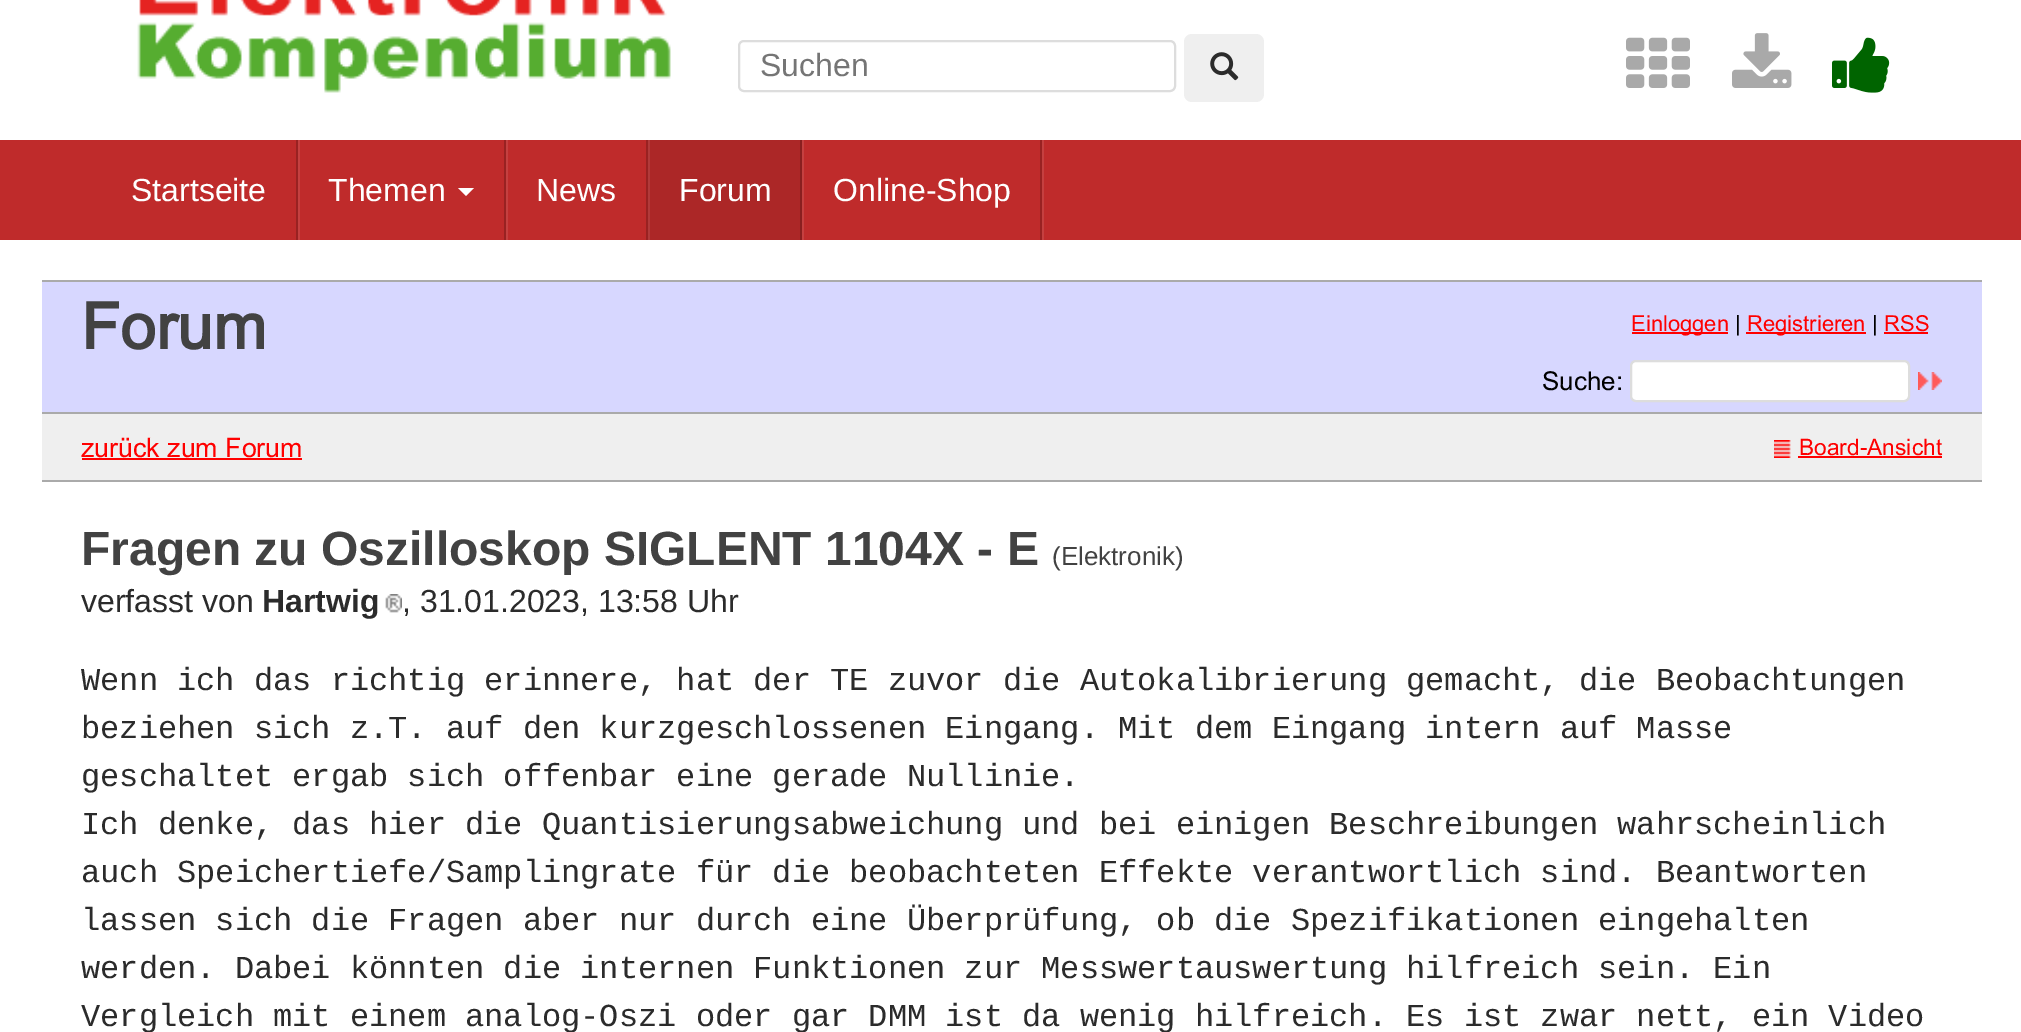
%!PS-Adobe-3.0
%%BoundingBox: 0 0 2021 1032
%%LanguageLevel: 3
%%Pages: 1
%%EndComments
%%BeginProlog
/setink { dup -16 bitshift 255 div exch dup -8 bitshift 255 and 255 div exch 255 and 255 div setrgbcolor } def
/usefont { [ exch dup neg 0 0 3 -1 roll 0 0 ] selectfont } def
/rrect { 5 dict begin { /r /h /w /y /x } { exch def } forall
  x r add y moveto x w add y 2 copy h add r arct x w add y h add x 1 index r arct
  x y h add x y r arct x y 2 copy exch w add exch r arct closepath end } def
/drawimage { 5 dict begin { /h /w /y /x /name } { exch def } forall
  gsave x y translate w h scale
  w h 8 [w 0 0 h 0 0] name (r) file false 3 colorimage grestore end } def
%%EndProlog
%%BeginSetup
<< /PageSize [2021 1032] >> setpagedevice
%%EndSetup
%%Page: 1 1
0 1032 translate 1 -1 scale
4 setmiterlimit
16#FFFFFF setink
0 0 2021 1032 rectfill
(img1.raw) 137 0 534 93 drawimage
16#DDDDDD setink
2 setlinewidth
739 41 436 50 5 rrect stroke
/LiberationSans-Regular 32 usefont
16#757575 setink
760 76 moveto (Suchen) show
16#EFEFEF setink
1184 34 80 68 8 rrect fill
(img2.raw) 1210 52 29 29 drawimage
(img3.raw) 1626 37 64 51 drawimage
(img4.raw) 1732 33 60 55 drawimage
(img5.raw) 1832 37 58 56 drawimage
[
    [0 140 2021 100 16#BF2B2B]
    [650 140 150 100 16#AC2727]
    [298 140 2 100 16#C54040]
    [296 140 2 100 16#992222]
] { aload pop setink rectfill } forall
16#FFFFFF setink
131 201 moveto (Startseite) show
16#C54040 setink
506 140 2 100 rectfill
16#992222 setink
504 140 2 100 rectfill
16#FFFFFF setink
328 201 moveto (Themen) show
458 188 moveto 474 188 lineto 466 196 lineto closepath fill
16#B13A3A setink
648 140 2 100 rectfill
16#992222 setink
646 140 2 100 rectfill
16#FFFFFF setink
536 201 moveto (News) show
16#C54040 setink
802 140 2 100 rectfill
16#8A1F1F setink
800 140 2 100 rectfill
16#FFFFFF setink
679 201 moveto (Forum) show
16#C54040 setink
1042 140 2 100 rectfill
16#992222 setink
1040 140 2 100 rectfill
16#FFFFFF setink
833 201 moveto (Online-Shop) show
16#AAAAAA setink
42 280 1940 2 rectfill
16#D7D7FF setink
42 282 1940 130 rectfill
/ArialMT-Bold 64 usefont
16#424242 setink
81 349 moveto (Forum) show
16#FF0000 setink
1632 332 96 2 rectfill
/ArialMT-Regular 22 usefont
1631 331 moveto (Einloggen) show
16#000000 setink
1735 331 moveto (|) show
16#FF0000 setink
1746 332 120 2 rectfill
1747 331 moveto (Registrieren) show
16#000000 setink
1872 331 moveto (|) show
16#FF0000 setink
1884 331 moveto (RSS) show
1884 332 44 2 rectfill
/ArialMT-Regular 26 usefont
16#000000 setink
1542 390 moveto (Suche:) show
16#FFFFFF setink
1631 361 278 40 5 rrect gsave fill grestore
16#DDDDDD setink
stroke
(img6.raw) 1918 372 24 18 drawimage
16#EFEFEF setink
42 414 1940 66 rectfill
16#AAAAAA setink
42 412 1940 2 rectfill
/ArialMT-Regular 26.75 usefont
16#FF0000 setink
81 457 moveto (zurück zum Forum) show
82 458 220 2 rectfill
(img7.raw) 1774 440 17 18 drawimage
/ArialMT-Regular 22.75 usefont
1799 455 moveto (Board-Ansicht) show
1798 456 144 2 rectfill
16#AAAAAA setink
42 480 1940 2 rectfill
/LiberationSans-Bold 48 usefont
16#424242 setink
81 565 moveto (Fragen zu Oszilloskop SIGLENT 1104X - E) show
/LiberationSans-Regular 26 usefont
1052 565 moveto (\(Elektronik\)) show
/LiberationSans-Regular 32 usefont
16#2B2B2B setink
81 612 moveto (verfasst von) show
/LiberationSans-Bold 32 usefont
262 612 moveto (Hartwig) show
(img8.raw) 385 594 17 19 drawimage
/LiberationSans-Regular 32 usefont
402 612 moveto (, 31.01.2023, 13:58 Uhr) show
/LiberationMono-Regular 32 usefont
[
    [(Wenn ich das richtig erinnere, hat der TE zuvor die Autokalibrierung gemacht, die Beobachtungen) 81 690]
    [(beziehen sich z.T. auf den kurzgeschlossenen Eingang. Mit dem Eingang intern auf Masse) 81 738]
    [(geschaltet ergab sich offenbar eine gerade Nullinie.) 81 786]
    [(Ich denke, das hier die Quantisierungsabweichung und bei einigen Beschreibungen wahrscheinlich) 81 834]
    [(auch Speichertiefe/Samplingrate für die beobachteten Effekte verantwortlich sind. Beantworten) 81 882]
    [(lassen sich die Fragen aber nur durch eine Überprüfung, ob die Spezifikationen eingehalten) 81 930]
    [(werden. Dabei könnten die internen Funktionen zur Messwertauswertung hilfreich sein. Ein) 81 978]
    [(Vergleich mit einem analog-Oszi oder gar DMM ist da wenig hilfreich. Es ist zwar nett, ein Video) 81 1026]
] { aload pop moveto show } forall
showpage
%%EOF
